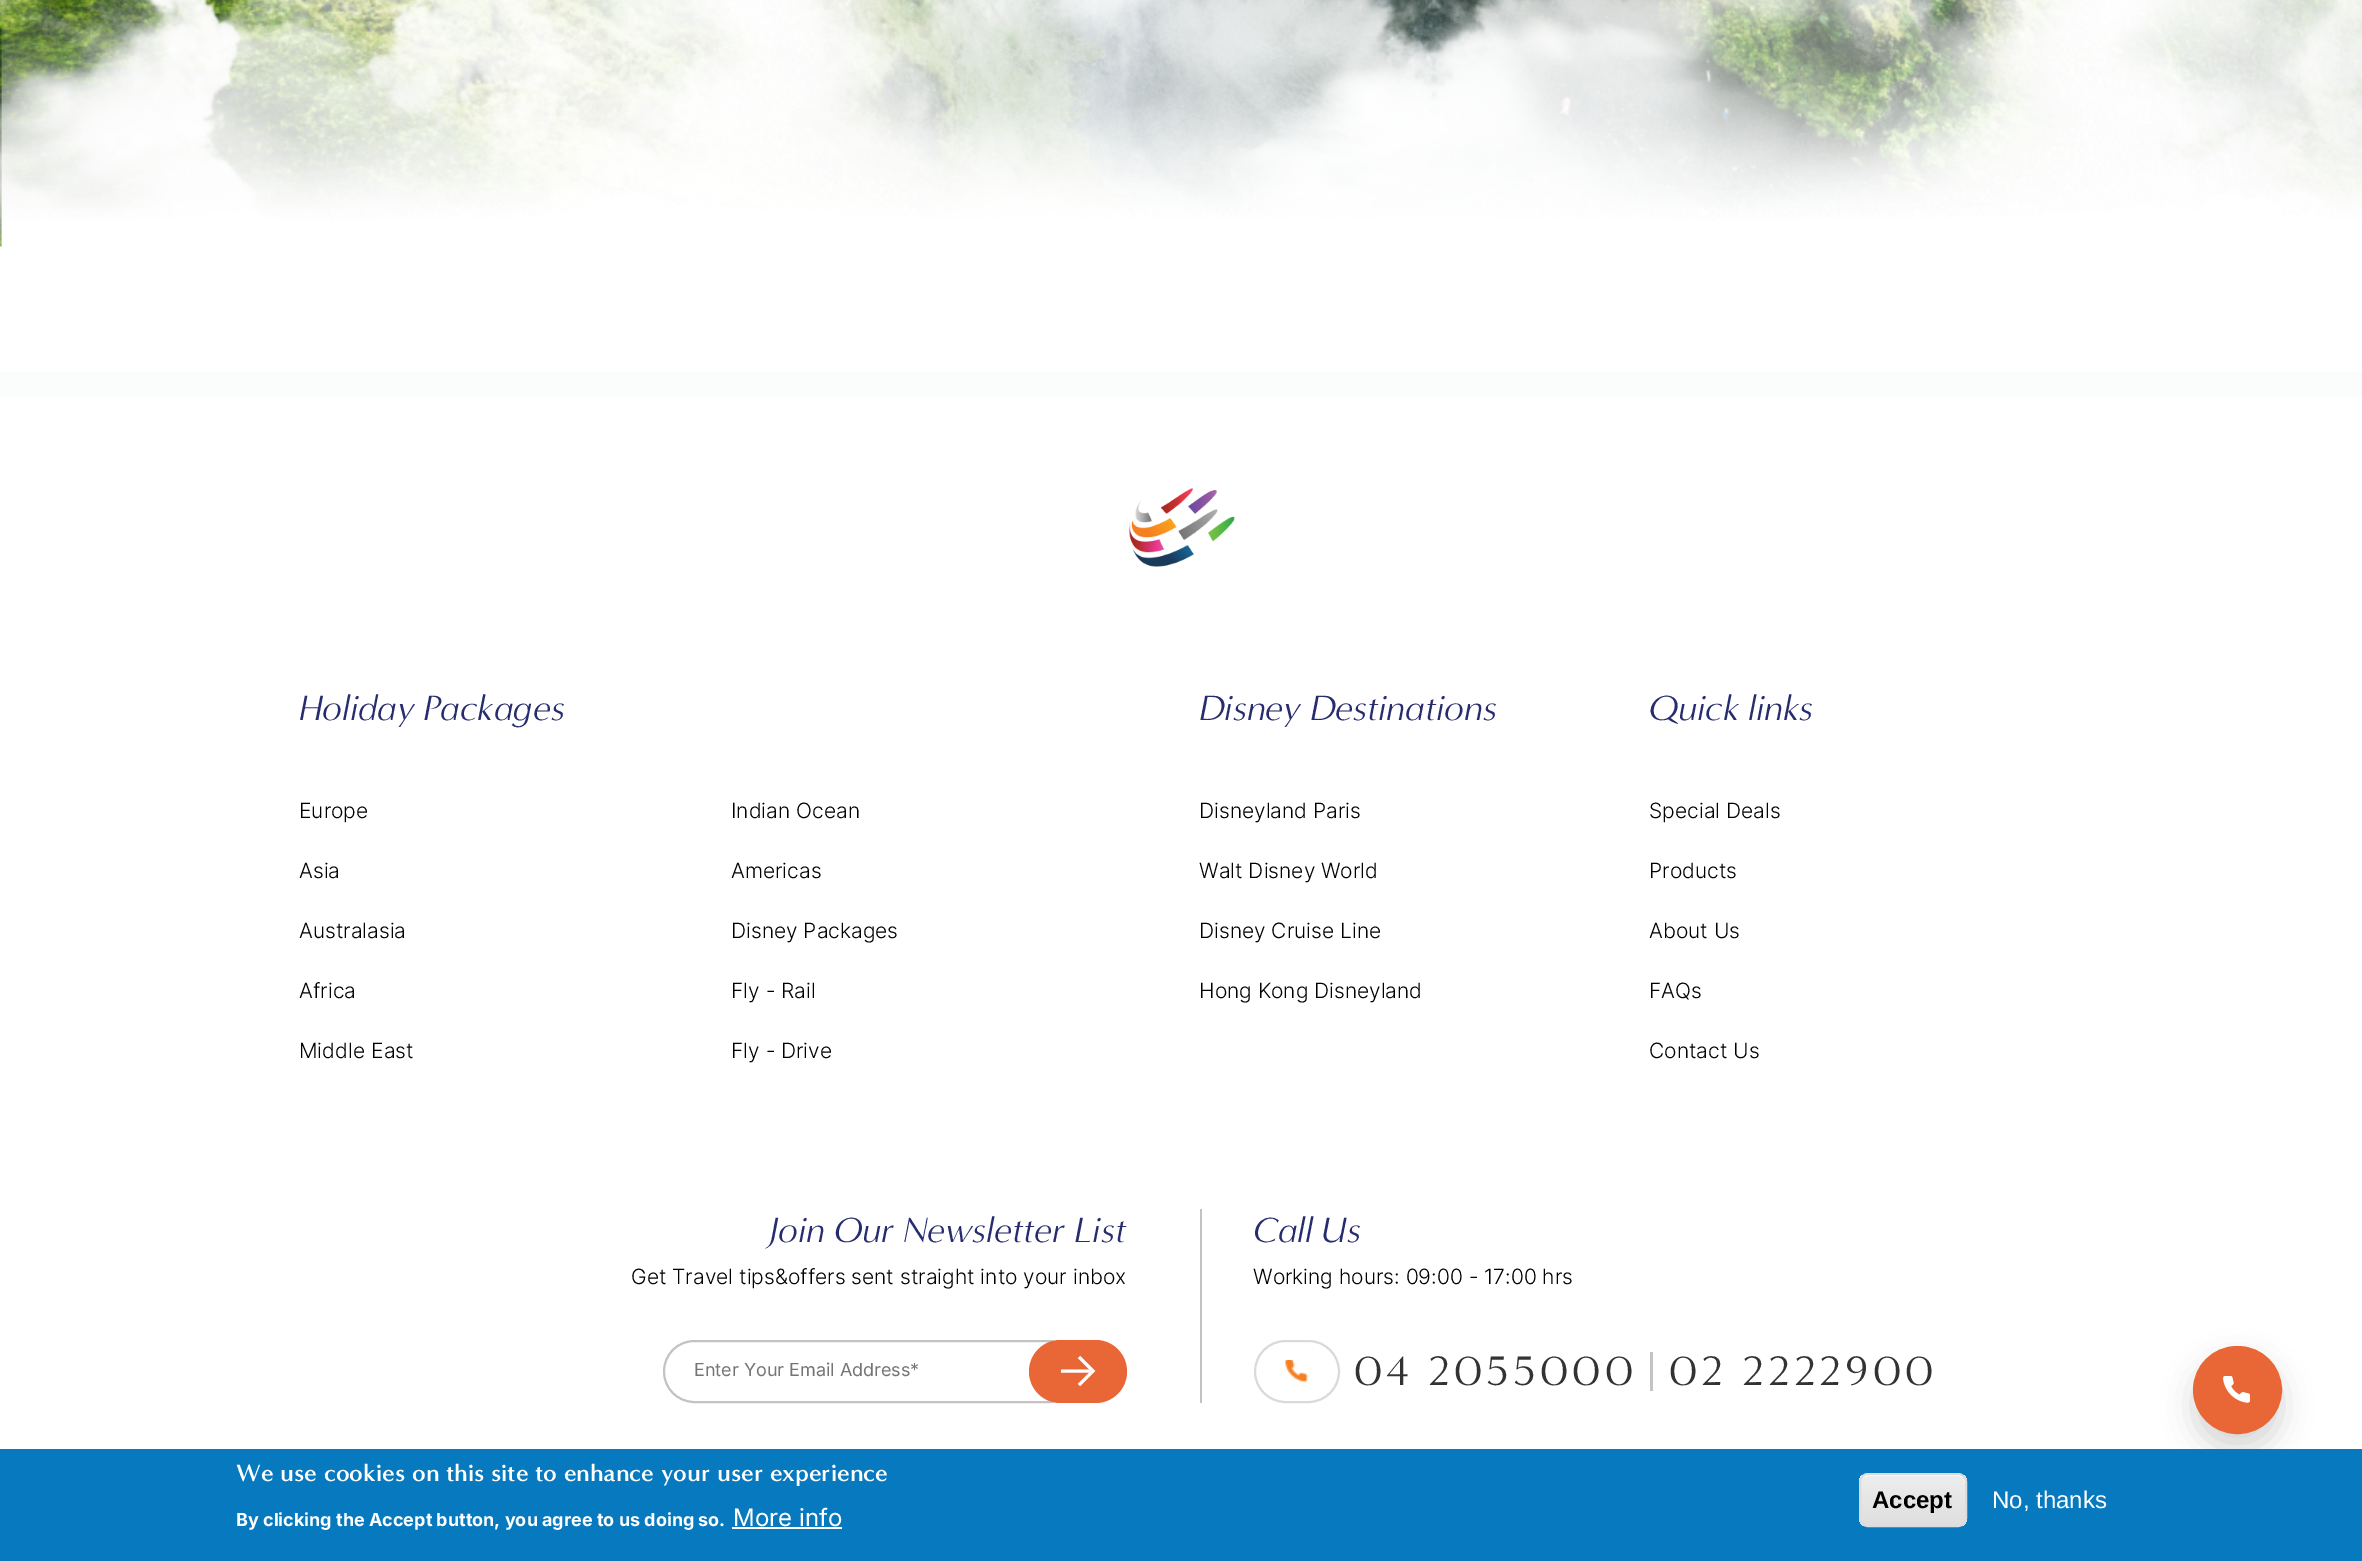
%!PS-Adobe-3.0
%%BoundingBox: 0 0 2362 1561
%%LanguageLevel: 3
%%Pages: 1
%%EndComments
%%BeginProlog
/setink { dup -16 bitshift 255 div exch dup -8 bitshift 255 and 255 div exch 255 and 255 div setrgbcolor } def
/usefont { [ exch dup neg 0 0 3 -1 roll 0 0 ] selectfont } def
/setalpha { dup .setfillconstantalpha .setstrokeconstantalpha } def
/rrect { 5 dict begin { /r /h /w /y /x } { exch def } forall
  x r add y moveto x w add y 2 copy h add r arct x w add y h add x 1 index r arct
  x y h add x y r arct x y 2 copy exch w add exch r arct closepath end } def
/softshadow { 12 dict begin { /a /b /q /h /w /y /x } { exch def } forall gsave /was 0 def
  9 -2 -9 { dup b mul 4 div /e exch def 1 sub .425 mul 2.718 exch exp 1 add a .99 .min exch div /now exch def
    1 1 now sub 1 was sub div sub setalpha /was now def
    w h .min e 2 mul add 0 gt { x e sub y e sub w e 2 mul add h e 2 mul add
      q e add b .6 mul add w h .min 2 div e add .min 0 .max rrect fill } if } for grestore end } def
/drawimage { 5 dict begin { /h /w /y /x /name } { exch def } forall
  gsave x y translate w h scale
  w h 8 [w 0 0 h 0 0] name (r) file false 3 colorimage grestore end } def
%%EndProlog
%%BeginSetup
<< /PageSize [2362 1561] /PageUsesTransparency true >> setpagedevice
%%EndSetup
%%Page: 1 1
0 .pushpdf14devicefilter
0 1561 translate 1 -1 scale
4 setmiterlimit
16#FFFFFF setink
0 0 2362 1561 rectfill
gsave 0 372 moveto 2362 372 lineto 2362 397 lineto 0 397 lineto closepath clip newpath
<< /ShadingType 2 /ColorSpace /DeviceRGB /Coords [1181 429 1181 -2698] /Extend [true true] /Function << /FunctionType 3 /Domain [0 1] /Functions [<< /FunctionType 2 /Domain [0 1] /C0 [1 1 1] /C1 [0.663 0.851 0.831] /N 1 >> << /FunctionType 2 /Domain [0 1] /C0 [0.663 0.851 0.831] /C1 [0.545 0.82 0.792] /N 1 >> << /FunctionType 2 /Domain [0 1] /C0 [0.545 0.82 0.792] /C1 [0.404 0.776 0.733] /N 1 >> << /FunctionType 2 /Domain [0 1] /C0 [0.404 0.776 0.733] /C1 [0.486 0.776 0.749] /N 1 >>] /Bounds [0.35 0.59 0.8] /Encode [0 1 0 1 0 1 0 1] >> >> shfill grestore
(img1.raw) 0 0 2362 372 drawimage
(img2.raw) 1129 488 106 79 drawimage
/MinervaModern-MediumItalic 36 usefont
16#262C6D setink
299 720 moveto (Holiday Packages) show
/Inter-Light 21 usefont
16#000000 setink
[
    [(Europe) 299 818]
    [(Indian Ocean) 731 818]
    [(Asia) 299 878]
    [(Americas) 731 878]
    [(Australasia) 299 938]
    [(Disney Packages) 731 938]
    [(Africa) 299 998]
    [(Fly - Rail) 731 998]
    [(Middle East) 299 1058]
    [(Fly - Drive) 731 1058]
] { aload pop moveto show } forall
/MinervaModern-MediumItalic 36 usefont
16#262C6D setink
1199 720 moveto (Disney Destinations) show
/Inter-Light 21 usefont
16#000000 setink
[
    [(Disneyland Paris) 1199 818]
    [(Walt Disney World) 1199 878]
    [(Disney Cruise Line) 1199 938]
    [(Hong Kong Disneyland) 1199 998]
] { aload pop moveto show } forall
/MinervaModern-MediumItalic 36 usefont
16#262C6D setink
1649 720 moveto (Quick links) show
/Inter-Light 21 usefont
16#000000 setink
[
    [(Special Deals) 1649 818]
    [(Products) 1649 878]
    [(About Us) 1649 938]
    [(FAQs) 1649 998]
    [(Contact Us) 1649 1058]
] { aload pop moveto show } forall
/MinervaModern-MediumItalic 36 usefont
16#262C6D setink
768 1242 moveto (Join Our Newsletter List) show
/Inter-Light 21 usefont
16#000000 setink
631 1284 moveto (Get Travel tips&offers sent straight into your inbox) show
16#C3C3C3 setink
2 setlinewidth
694.5 1341 moveto 1050 1341 lineto 1054.5 1341 1058 1344.5 1058 1349 curveto 1058 1394 lineto 1058 1398.5 1054.5 1402 1050 1402 curveto 694.5 1402 lineto 677.5 1402 664 1388.5 664 1371.5 curveto 664 1354.5 677.5 1341 694.5 1341 curveto closepath stroke
/Inter-Regular 18 usefont
16#757575 setink
694 1376 moveto (Enter Your Email Address*) show
16#E96736 setink
1029 1340 98 63 31.5 rrect fill
gsave
1061 1356 34 30 rectclip
16#FFFFFF setink
3.1 setlinewidth
1090.5 1371 moveto 1060.5 1371 lineto stroke
grestore
16#FFFFFF setink
3.1 setlinewidth
1079 1357 moveto 1093 1371 lineto 1079 1385 lineto stroke
16#C3C3C3 setink
1200 1209 2 194 rectfill
/MinervaModern-MediumItalic 36 usefont
16#262C6D setink
1253 1242 moveto (Call Us) show
/Inter-Light 21 usefont
16#000000 setink
1253 1284 moveto (Working hours: 09:00 - 17:00 hrs) show
16#DADADA setink
2 setlinewidth
1255 1341 84 61 30.5 rrect stroke
(img3.raw) 1285 1360 23 23 drawimage
/MinervaModern-Regular 42 usefont
16#333333 setink
1354 1385 moveto 4.25 0 (04 2055000) ashow
16#C3C3C3 setink
1650 1352 3 39 rectfill
16#333333 setink
1669 1385 moveto 4.25 0 (02 2222900) ashow
16#000000 setink
2193 1361 89 88 44 15 0.16 softshadow
16#E96736 setink
2194 1347 87 86 43 rrect gsave fill grestore
stroke
(img4.raw) 2223 1376 27 27 drawimage
16#0779BF setink
0 1449 2362 112 rectfill
/MinervaModern-Bold 24 usefont
16#FFFFFF setink
236 1481 moveto (We use cookies on this site to enhance your user experience) show
/Inter-Bold 18 usefont
236 1526 moveto (By clicking the Accept button, you agree to us doing so.) show
/Inter-Regular 24 usefont
733 1526 moveto (More info) show
732 1527 110 2 rectfill
gsave
1859 1473 108 54 9 rrect clip newpath
gsave 1859 1475 moveto 1967 1475 lineto 1967 1526 lineto 1859 1526 lineto closepath clip newpath
<< /ShadingType 2 /ColorSpace /DeviceRGB /Coords [1913 1475 1913 1526] /Extend [true true] /Function << /FunctionType 3 /Domain [0 1] /Functions [<< /FunctionType 2 /Domain [0 1] /C0 [0.929 0.929 0.929] /C1 [0.929 0.929 0.929] /N 1 >> << /FunctionType 2 /Domain [0 1] /C0 [0.929 0.929 0.929] /C1 [0.875 0.875 0.875] /N 1 >>] /Bounds [0.05] /Encode [0 1 0 1] >> >> shfill grestore
grestore
1868 1476 moveto 1958 1476 lineto 1962 1476 1965 1479 1965 1484 curveto 1965 1471 1950 1475 1942 1475 curveto 1883 1475 lineto 1875 1475 1860 1471 1860 1484 curveto 1860 1479 1863 1476 1868 1476 curveto closepath fill
16#DCDCDC setink
1860 1474 106 52 8 rrect stroke
/LiberationSans-Bold 24 usefont
16#000000 setink
1872 1508 moveto (Accept) show
/LiberationSans-Regular 24 usefont
16#FFFFFF setink
1992 1508 moveto (No, thanks) show
.poppdf14devicefilter showpage
%%EOF
